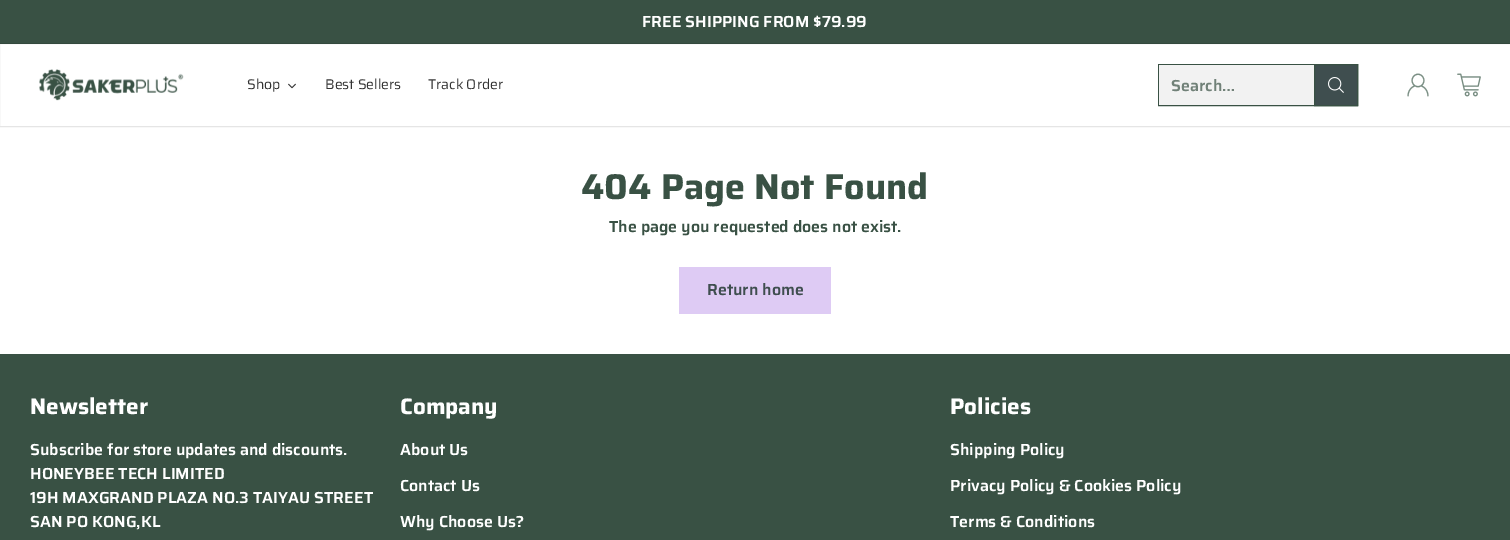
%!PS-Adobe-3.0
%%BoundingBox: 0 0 1510 540
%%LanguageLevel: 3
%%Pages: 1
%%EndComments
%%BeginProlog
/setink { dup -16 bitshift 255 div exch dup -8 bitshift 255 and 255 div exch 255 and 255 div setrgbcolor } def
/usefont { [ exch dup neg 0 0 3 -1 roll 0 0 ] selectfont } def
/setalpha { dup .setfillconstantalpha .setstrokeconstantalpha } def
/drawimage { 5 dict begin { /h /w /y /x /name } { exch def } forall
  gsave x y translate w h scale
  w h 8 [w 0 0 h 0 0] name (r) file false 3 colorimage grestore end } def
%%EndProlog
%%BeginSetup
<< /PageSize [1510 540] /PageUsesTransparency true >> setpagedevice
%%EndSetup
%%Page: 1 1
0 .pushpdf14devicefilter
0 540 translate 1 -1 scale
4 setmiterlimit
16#FFFFFF setink
0 0 1510 540 rectfill
16#395144 setink
0 0 1510 44 rectfill
/Saira-SemiBold 16 usefont
16#FFFFFF setink
642 27 moveto (FREE SHIPPING FROM $79.99) show
0.1 setalpha
16#000000 setink
-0.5 43.5 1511 83 rectstroke
1 setalpha
(img1.raw) 39 69 145 32 drawimage
/Saira-Regular 14 usefont
16#333333 setink
247 89 moveto (Shop) show
(img2.raw) 288 83 8 6 drawimage
325 89 moveto (Best Sellers) show
428 89 moveto (Track Order) show
16#395144 setink
1158.5 64.5 199 41 rectstroke
16#F2F2F2 setink
1159 65 155 40 rectfill
/Saira-SemiBold 16 usefont
16#718178 setink
1171 91 moveto (Search…) show
16#3F4E4F setink
1314.5 64.5 moveto 1357.5 64.5 lineto 1357.5 105.5 lineto 1314.5 105.5 lineto closepath gsave fill grestore
16#395144 setink
stroke
(img3.raw) 1328 77 16 16 drawimage
(img4.raw) 1407 73 22 24 drawimage
(img5.raw) 1457 73 24 24 drawimage
/Saira-Bold 35.9 usefont
581 199 moveto (404 Page Not Found) show
/Saira-SemiBold 16 usefont
609 232 moveto (The page you requested does not exist.) show
16#DECBF4 setink
679 267 152 47 rectfill
16#3F4E4F setink
707 295 moveto (Return home) show
16#395144 setink
0 354 1510 186 rectfill
/Saira-Bold 22.5 usefont
16#FFFFFF setink
30 414 moveto (Newsletter) show
/Saira-SemiBold 16 usefont
[
    [(Subscribe for store updates and discounts.) 30 455]
    [(HONEYBEE TECH LIMITED) 30 479]
    [(19H MAXGRAND PLAZA NO.3 TAIYAU STREET) 30 503]
    [(SAN PO KONG,KL) 30 527]
] { aload pop moveto show } forall
/Saira-Bold 22.5 usefont
400 414 moveto (Company) show
/Saira-SemiBold 16 usefont
[
    [(About Us) 400 455]
    [(Contact Us) 400 491]
    [(Why Choose Us?) 400 527]
] { aload pop moveto show } forall
/Saira-Bold 22.5 usefont
950 414 moveto (Policies) show
/Saira-SemiBold 16 usefont
[
    [(Shipping Policy) 950 455]
    [(Privacy Policy & Cookies Policy) 950 491]
    [(Terms & Conditions) 950 527]
] { aload pop moveto show } forall
.poppdf14devicefilter showpage
%%EOF
